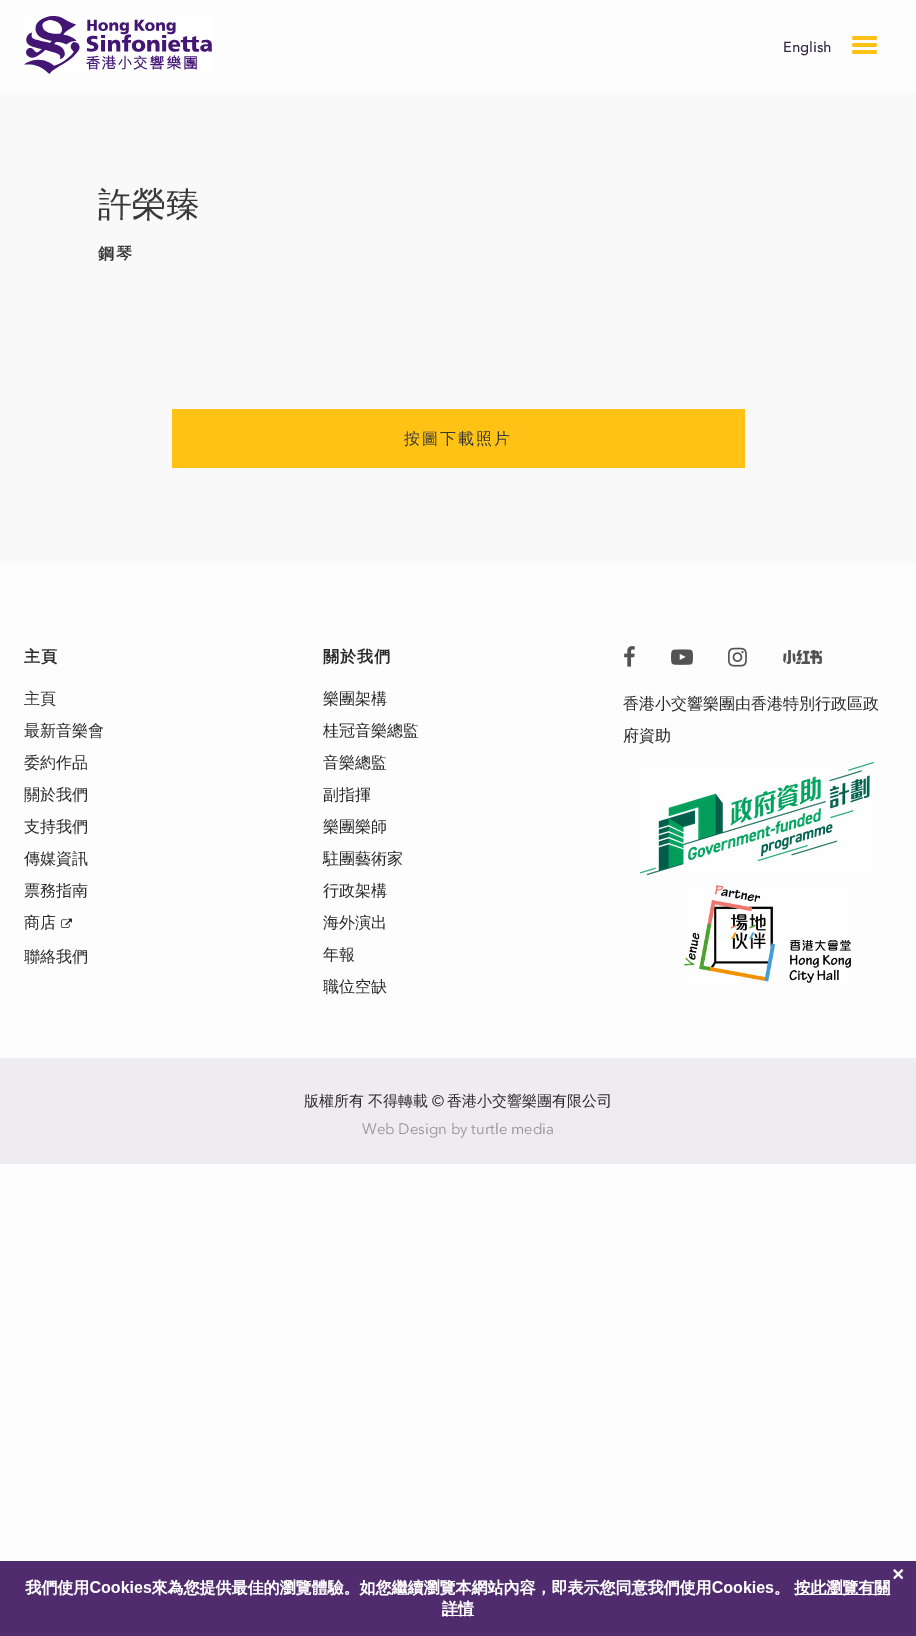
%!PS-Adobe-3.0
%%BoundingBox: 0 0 916 1636
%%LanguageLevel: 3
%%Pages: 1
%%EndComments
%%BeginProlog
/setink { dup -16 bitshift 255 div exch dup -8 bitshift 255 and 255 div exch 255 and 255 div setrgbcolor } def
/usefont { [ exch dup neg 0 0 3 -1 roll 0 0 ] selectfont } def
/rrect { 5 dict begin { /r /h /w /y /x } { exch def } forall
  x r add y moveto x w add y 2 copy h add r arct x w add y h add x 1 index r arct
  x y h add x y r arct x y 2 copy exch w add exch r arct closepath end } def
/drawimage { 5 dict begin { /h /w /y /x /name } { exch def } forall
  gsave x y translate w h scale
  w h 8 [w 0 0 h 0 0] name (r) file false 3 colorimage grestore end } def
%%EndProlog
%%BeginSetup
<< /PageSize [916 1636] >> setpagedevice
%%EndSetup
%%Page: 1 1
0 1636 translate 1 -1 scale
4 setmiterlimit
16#FDFDFD setink
0 0 916 1636 rectfill
(img1.raw) 24 16 188 58 drawimage
/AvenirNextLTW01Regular-Bold 14 usefont
16#332A47 setink
783 52 moveto 0.25 0 (English) ashow
16#FFC115 setink
852 36 25 4 2 rrect fill
852 43 25 4 2 rrect fill
852 50 25 4 2 rrect fill
16#F9F9F9 setink
0 93 916 470 rectfill
/WenQuanYiZenHei-Medium 34 usefont
16#393939 setink
98 216 moveto (許榮臻) show
/WenQuanYiZenHei-Bold 16 usefont
98 259 moveto 2 0 (鋼琴) ashow
16#FFC215 setink
172 409 573 59 rectfill
/WenQuanYiZenHei-Medium 16 usefont
16#393939 setink
404 444 moveto 2 0 (按圖下載照片) ashow
/WenQuanYiZenHei-Bold 16 usefont
16#2A2A2A setink
24 662 moveto 1 0 (主頁) ashow
/WenQuanYiZenHei-Medium 16 usefont
[
    [(主頁) 24 704]
    [(最新音樂會) 24 736]
    [(委約作品) 24 768]
    [(關於我們) 24 800]
    [(支持我們) 24 832]
    [(傳媒資訊) 24 864]
    [(票務指南) 24 896]
    [(商店) 24 928]
] { aload pop moveto show } forall
(img2.raw) 61 918 11 10 drawimage
24 962 moveto (聯絡我們) show
/WenQuanYiZenHei-Bold 16 usefont
323 662 moveto 1 0 (關於我們) ashow
/WenQuanYiZenHei-Medium 16 usefont
[
    [(樂團架構) 323 704]
    [(桂冠音樂總監) 323 736]
    [(音樂總監) 323 768]
    [(副指揮) 323 800]
    [(樂團樂師) 323 832]
    [(駐團藝術家) 323 864]
    [(行政架構) 323 896]
    [(海外演出) 323 928]
    [(年報) 323 960]
    [(職位空缺) 323 992]
] { aload pop moveto show } forall
(img3.raw) 624 646 11 21 drawimage
(img4.raw) 671 649 22 16 drawimage
(img5.raw) 728 647 19 20 drawimage
(img6.raw) 783 650 39 14 drawimage
623 709 moveto (香港小交響樂團由香港特別行政區政) show
623 741 moveto (府資助) show
(img7.raw) 640 762 234 113 drawimage
(img8.raw) 684 885 167 98 drawimage
16#EEEBF1 setink
0 1058 916 106 rectfill
/WenQuanYiZenHei-Medium 15 usefont
16#2A2A2A setink
304 1106 moveto (版權所有 不得轉載) show
/AvenirNextLTW01Regular-Regular 15 usefont
432 1106 moveto (©) show
/WenQuanYiZenHei-Medium 15 usefont
447 1106 moveto (香港小交響樂團有限公司) show
/AvenirNextLTW01Regular-Regular 15 usefont
16#949494 setink
362 1134 moveto (Web Design by turtle media) show
(img9.raw) 0 1561 916 75 drawimage
showpage
%%EOF
